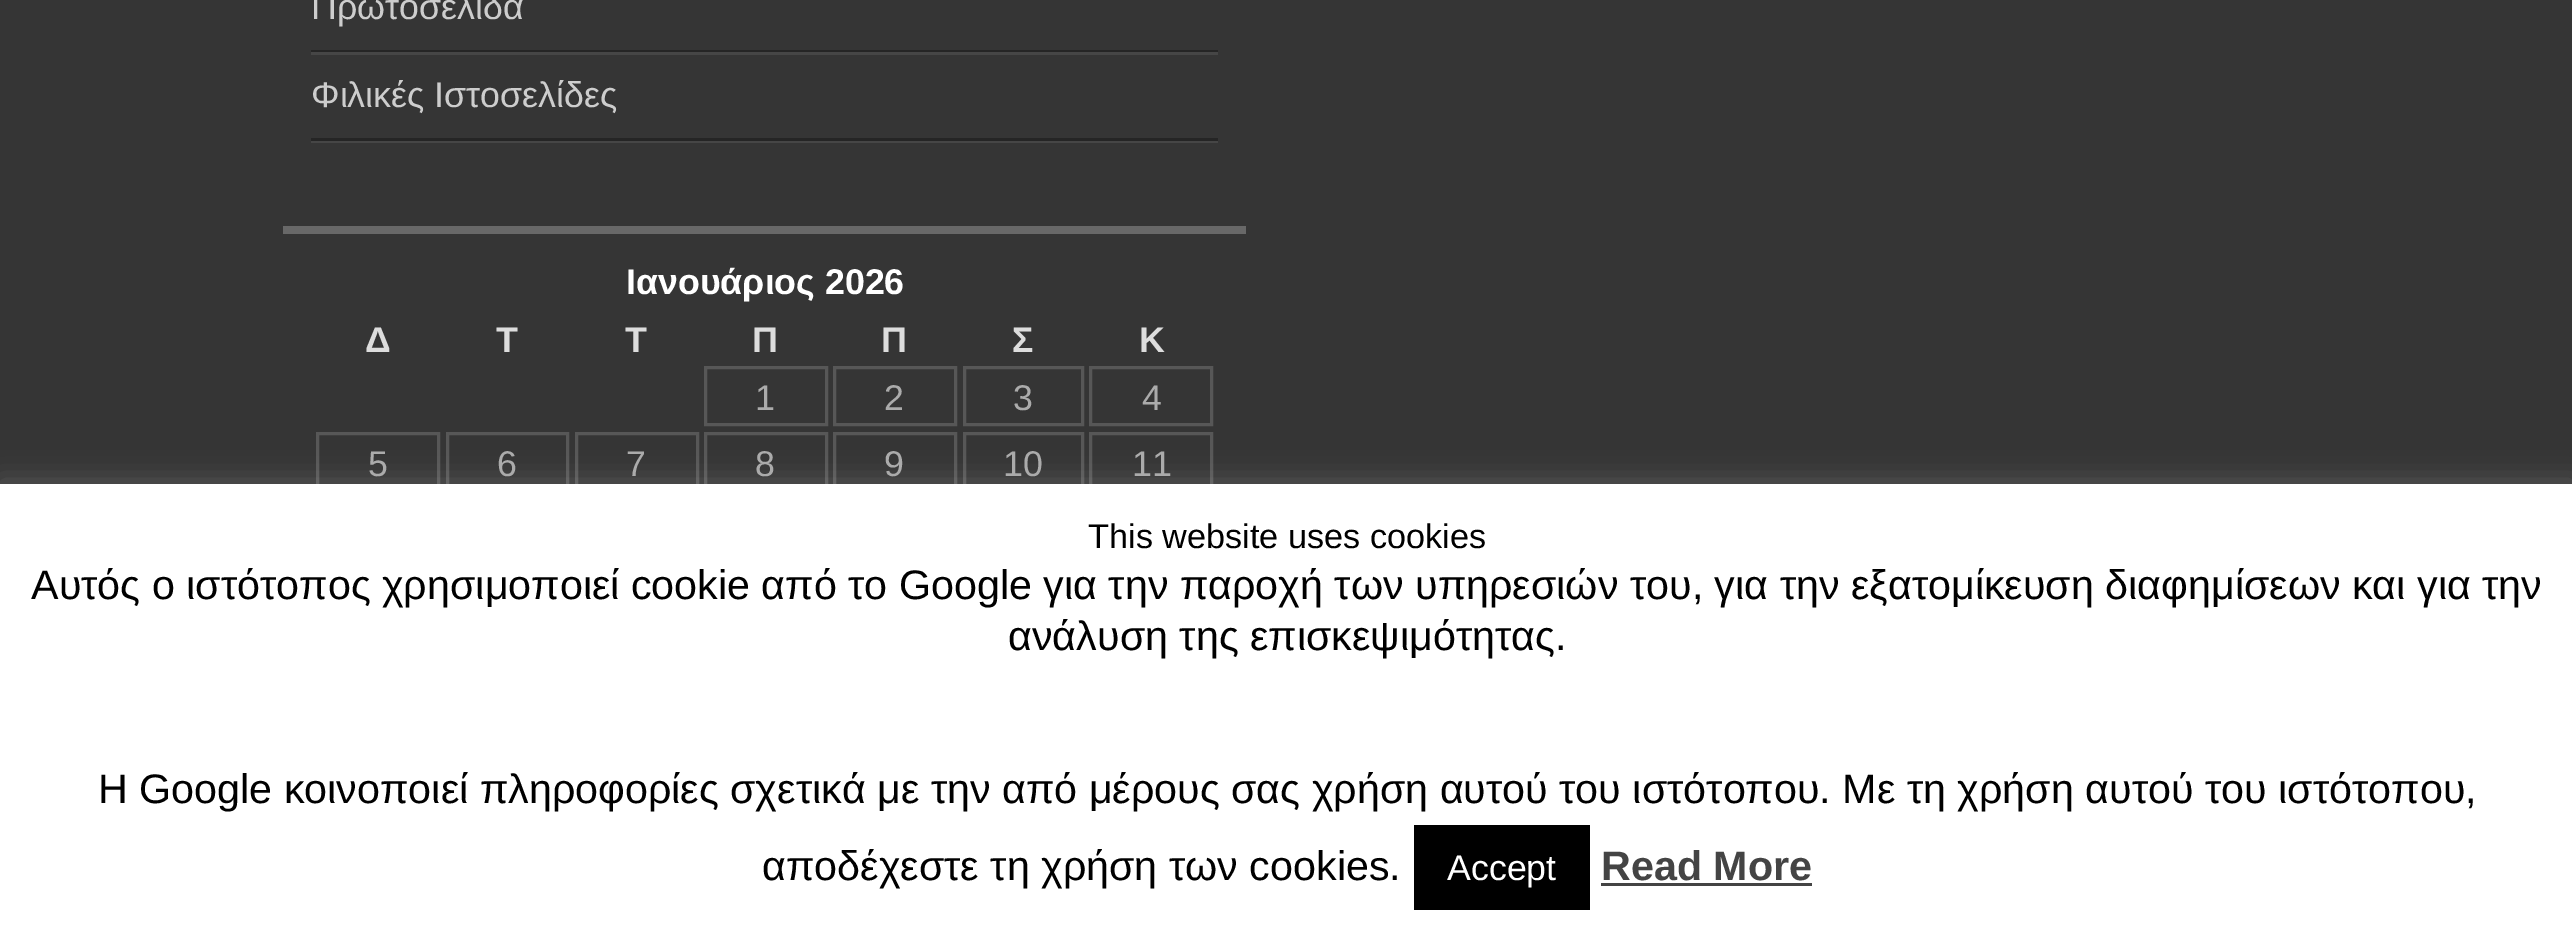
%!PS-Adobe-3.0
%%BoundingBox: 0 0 2572 941
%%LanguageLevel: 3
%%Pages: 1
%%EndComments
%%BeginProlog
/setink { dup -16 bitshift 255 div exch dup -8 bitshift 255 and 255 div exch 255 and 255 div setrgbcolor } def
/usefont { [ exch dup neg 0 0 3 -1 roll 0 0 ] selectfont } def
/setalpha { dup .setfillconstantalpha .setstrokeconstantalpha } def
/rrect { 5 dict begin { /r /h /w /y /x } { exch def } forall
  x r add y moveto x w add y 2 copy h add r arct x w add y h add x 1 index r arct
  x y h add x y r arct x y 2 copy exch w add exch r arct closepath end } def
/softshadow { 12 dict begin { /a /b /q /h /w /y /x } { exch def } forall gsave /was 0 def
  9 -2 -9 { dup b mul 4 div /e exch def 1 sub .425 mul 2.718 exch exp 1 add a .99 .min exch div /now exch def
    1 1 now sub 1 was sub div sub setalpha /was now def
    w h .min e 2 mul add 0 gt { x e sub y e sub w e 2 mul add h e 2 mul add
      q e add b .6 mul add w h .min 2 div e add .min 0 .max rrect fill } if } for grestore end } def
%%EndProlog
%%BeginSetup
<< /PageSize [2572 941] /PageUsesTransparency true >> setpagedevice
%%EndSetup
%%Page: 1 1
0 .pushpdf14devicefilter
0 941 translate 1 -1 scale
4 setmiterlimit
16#353535 setink
0 0 2572 941 rectfill
16#464646 setink
311 141 907 2 rectfill
16#252525 setink
311 50 907 2 rectfill
/LiberationSans-Regular 35.75 usefont
16#CDCDCD setink
311 19 moveto (Πρωτοσέλιδα) show
16#464646 setink
311 52 907 3 rectfill
16#252525 setink
311 138 907 3 rectfill
16#CDCDCD setink
311 107 moveto (Φιλικές Ιστοσελίδες) show
16#686868 setink
283 226 963 8 rectfill
/LiberationSans-Bold 35.75 usefont
16#FFFFFF setink
626 294 moveto (Ιανουάριος 2026) show
16#DDDDDD setink
[
    [(Δ) 365 352]
    [(Τ) 496 352]
    [(Τ) 625 352]
    [(Π) 752 352]
    [(Π) 881 352]
    [(Σ) 1012 352]
    [(Κ) 1139 352]
] { aload pop moveto show } forall
16#575757 setink
3 setlinewidth
705.5 367.5 121 57 rectstroke
/LiberationSans-Regular 35.75 usefont
16#ABABAB setink
755 410 moveto (1) show
16#575757 setink
834.5 367.5 121 57 rectstroke
16#ABABAB setink
884 410 moveto (2) show
16#575757 setink
964.5 367.5 118 57 rectstroke
16#ABABAB setink
1013 410 moveto (3) show
16#575757 setink
1090.5 367.5 121 57 rectstroke
16#ABABAB setink
1142 410 moveto (4) show
16#575757 setink
317.5 433.5 121 57 rectstroke
16#ABABAB setink
368 476 moveto (5) show
16#575757 setink
447.5 433.5 120 57 rectstroke
16#ABABAB setink
497 476 moveto (6) show
16#575757 setink
576.5 433.5 121 57 rectstroke
16#ABABAB setink
626 476 moveto (7) show
16#575757 setink
705.5 433.5 121 57 rectstroke
16#ABABAB setink
755 476 moveto (8) show
16#575757 setink
834.5 433.5 121 57 rectstroke
16#ABABAB setink
884 476 moveto (9) show
16#575757 setink
964.5 433.5 118 57 rectstroke
16#ABABAB setink
1003 476 moveto (10) show
16#575757 setink
1090.5 433.5 121 57 rectstroke
16#ABABAB setink
1132 476 moveto (11) show
16#ACABAB setink
0 481 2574 460 0 14 0.3 softshadow
16#FFFFFF setink
0 484 2572 457 rectfill
/LiberationSans-Regular 34.25 usefont
16#000000 setink
1088 548 moveto (This website uses cookies) show
/LiberationSans-Regular 41.25 usefont
[
    [(Αυτός ο ιστότοπος χρησιμοποιεί cookie από το Google για την παροχή των υπηρεσιών του, για την εξατομίκευση διαφημίσεων και για την) 31 599]
    [(ανάλυση της επισκεψιμότητας.) 1008 650]
    [(Η Google κοινοποιεί πληροφορίες σχετικά με την από μέρους σας χρήση αυτού του ιστότοπου. Με τη χρήση αυτού του ιστότοπου,) 98 803]
    [(αποδέχεστε τη χρήση των cookies.) 762 880]
] { aload pop moveto show } forall
1414 825 176 85 rectfill
/LiberationSans-Regular 35.75 usefont
16#FFFFFF setink
1447 880 moveto (Accept) show
/LiberationSans-Bold 41.25 usefont
16#444444 setink
1601 880 moveto (Read More) show
1601 883 211 3 rectfill
.poppdf14devicefilter showpage
%%EOF
